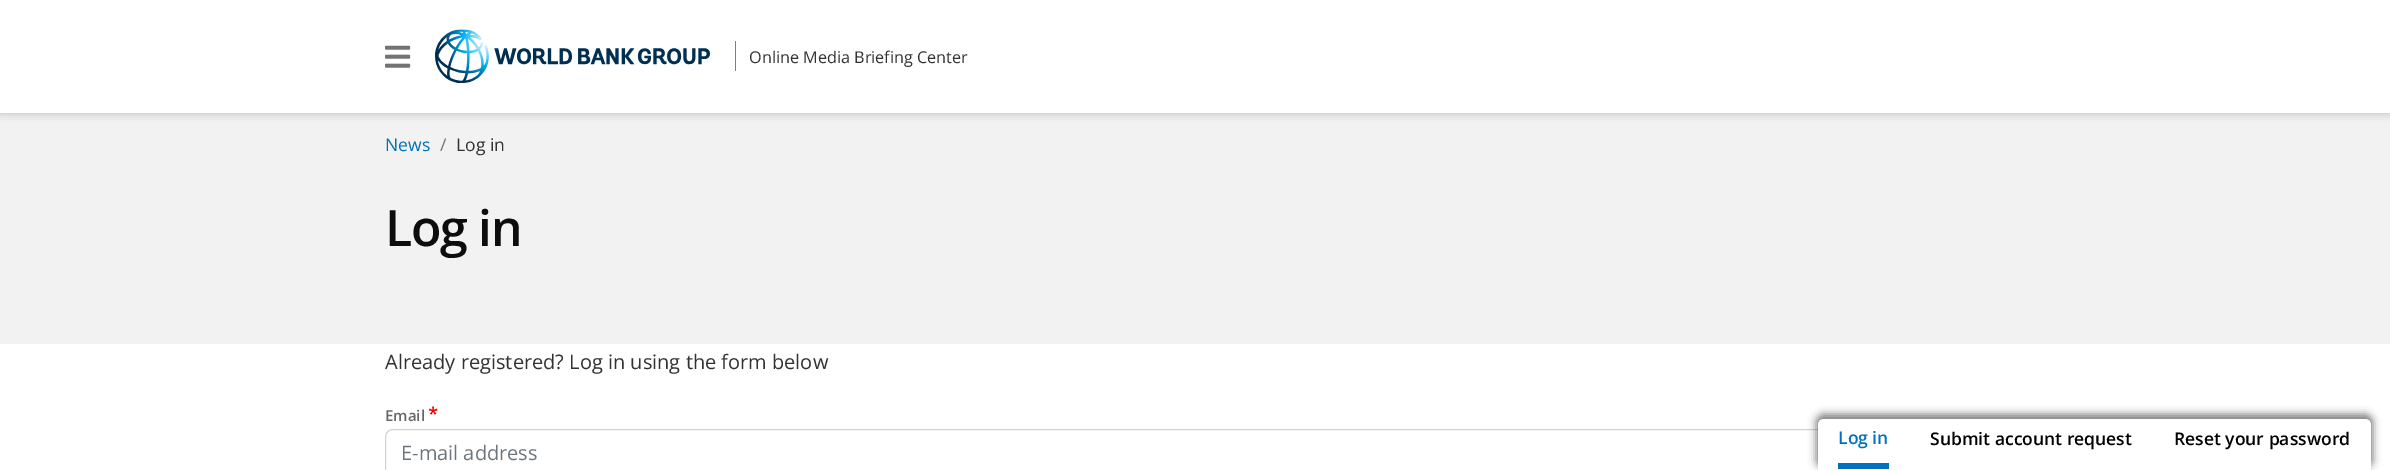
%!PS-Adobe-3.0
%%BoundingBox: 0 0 2390 470
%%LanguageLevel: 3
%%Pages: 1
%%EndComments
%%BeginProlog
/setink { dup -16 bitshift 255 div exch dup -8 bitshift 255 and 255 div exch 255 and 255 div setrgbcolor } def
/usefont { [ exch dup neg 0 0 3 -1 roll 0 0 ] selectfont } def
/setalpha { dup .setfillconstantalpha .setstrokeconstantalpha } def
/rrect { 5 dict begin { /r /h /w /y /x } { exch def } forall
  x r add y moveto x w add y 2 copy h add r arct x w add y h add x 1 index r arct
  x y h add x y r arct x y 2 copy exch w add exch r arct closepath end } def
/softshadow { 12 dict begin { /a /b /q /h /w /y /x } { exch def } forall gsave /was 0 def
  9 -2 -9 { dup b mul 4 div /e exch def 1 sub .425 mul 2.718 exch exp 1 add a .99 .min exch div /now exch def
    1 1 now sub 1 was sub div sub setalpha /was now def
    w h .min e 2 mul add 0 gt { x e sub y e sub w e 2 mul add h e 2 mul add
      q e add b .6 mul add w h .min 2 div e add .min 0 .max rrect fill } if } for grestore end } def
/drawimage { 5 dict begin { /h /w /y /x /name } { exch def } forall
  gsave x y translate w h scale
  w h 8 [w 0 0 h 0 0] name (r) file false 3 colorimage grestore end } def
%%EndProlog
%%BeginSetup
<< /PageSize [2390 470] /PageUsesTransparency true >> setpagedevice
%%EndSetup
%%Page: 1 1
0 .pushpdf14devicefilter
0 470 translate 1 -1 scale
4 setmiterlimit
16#FFFFFF setink
0 0 2390 470 rectfill
16#F2F2F2 setink
0 113 2390 231 rectfill
16#000000 setink
0 3 2390 112 0 4 0.16 softshadow
16#FFFFFF setink
0 0 2390 113 rectfill
(img1.raw) 385 45 26 23 drawimage
(img2.raw) 435 29 275 54 drawimage
16#808080 setink
735 41 1 30 rectfill
/OpenSans-Regular 16.25 usefont
16#323232 setink
749 63 moveto (Online Media Briefing Center) show
/OpenSans-Regular 17.5 usefont
16#0071B3 setink
385 151 moveto (News) show
16#6C757D setink
440 151 moveto (/) show
16#323232 setink
456 151 moveto (Log in) show
/OpenSans-SemiBold 50 usefont
16#0D0D0D setink
385 246 moveto -1.25 0 (Log in) ashow
/OpenSans-Regular 20 usefont
16#323232 setink
385 369 moveto (Already registered? Log in using the form below) show
/OpenSans-SemiBold 15 usefont
16#666666 setink
385 421 moveto (Email) show
(img3.raw) 429 406 9 9 drawimage
16#CED4DA setink
385.5 429.5 1619 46 7.5 rrect stroke
/OpenSans-Regular 20 usefont
16#6C757D setink
401 460 moveto (E-mail address) show
16#000000 setink
1816 414 557 54 8 4 0.5 softshadow
16#FFFFFF setink
1824 419 moveto 2365 419 lineto 2368.5 419 2371 421.5 2371 425 curveto 2371 470 lineto 1818 470 lineto 1818 425 lineto 1818 421.5 1820.5 419 1824 419 curveto closepath fill
/OpenSans-SemiBold 17.5 usefont
16#0071BC setink
1838 444 moveto (Log in) show
1838 463 51 6 rectfill
16#000000 setink
1930 445 moveto (Submit account request) show
2174 445 moveto (Reset your password) show
.poppdf14devicefilter showpage
%%EOF
